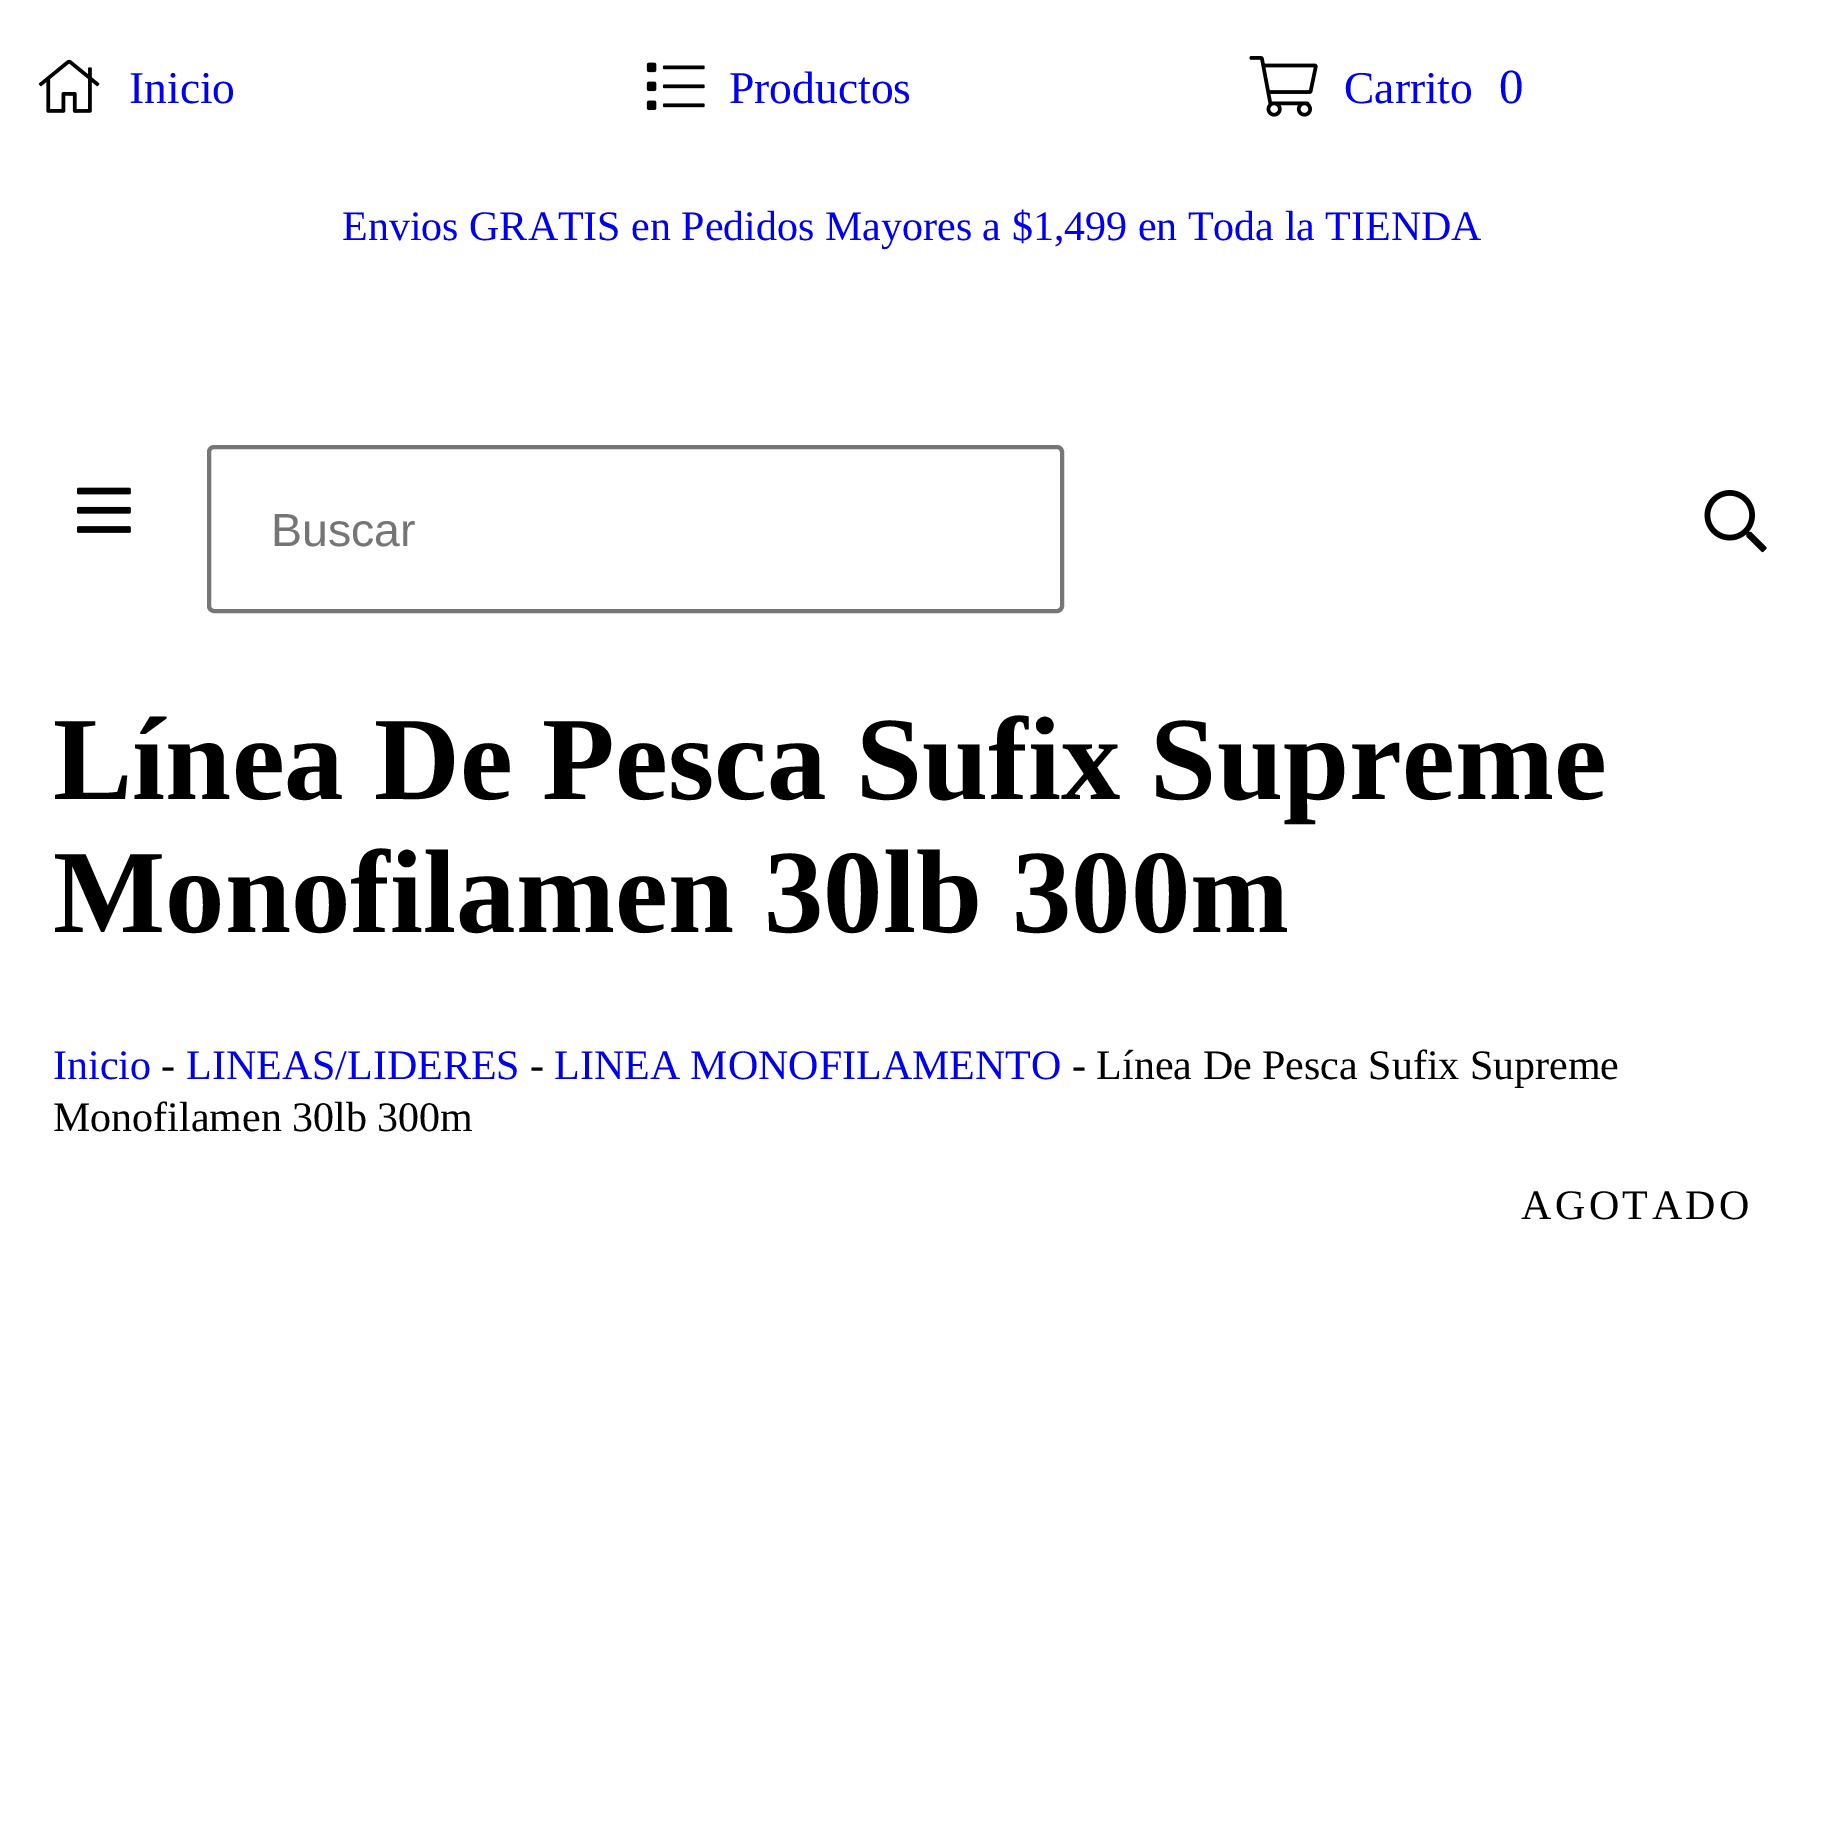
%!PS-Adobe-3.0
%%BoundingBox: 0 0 1823 1846
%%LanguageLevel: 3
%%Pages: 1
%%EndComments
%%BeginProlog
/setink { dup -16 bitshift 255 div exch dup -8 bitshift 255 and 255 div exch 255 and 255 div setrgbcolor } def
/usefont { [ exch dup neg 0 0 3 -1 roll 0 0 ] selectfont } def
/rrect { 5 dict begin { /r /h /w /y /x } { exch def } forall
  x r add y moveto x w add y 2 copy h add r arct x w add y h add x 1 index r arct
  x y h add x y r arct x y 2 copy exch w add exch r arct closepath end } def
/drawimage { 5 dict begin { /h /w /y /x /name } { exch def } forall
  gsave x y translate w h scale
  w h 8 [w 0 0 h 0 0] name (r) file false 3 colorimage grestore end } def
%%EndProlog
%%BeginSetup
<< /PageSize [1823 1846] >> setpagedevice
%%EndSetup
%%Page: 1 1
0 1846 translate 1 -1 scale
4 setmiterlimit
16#FFFFFF setink
0 0 1823 1846 rectfill
(img1.raw) 38 59 62 54 drawimage
/LiberationSerif-Regular 45.5 usefont
16#0000EE setink
129 103 moveto (Inicio) show
(img2.raw) 646 62 59 48 drawimage
729 103 moveto (Productos) show
(img3.raw) 1249 56 69 61 drawimage
1344 103 moveto (Carrito) show
/LiberationSerif-Regular 49 usefont
1499 103 moveto (0) show
/LiberationSerif-Regular 42 usefont
342 240 moveto (Envios GRATIS en Pedidos Mayores a $1,499 en Toda la TIENDA) show
(img4.raw) 77 487 54 46 drawimage
16#767676 setink
4 setlinewidth
209 447 853 164 5 rrect stroke
/LiberationSans-Regular 46.5 usefont
16#757575 setink
271 546 moveto (Buscar) show
(img5.raw) 1704 490 63 63 drawimage
/LiberationSerif-Bold 119 usefont
16#000000 setink
53 799 moveto (Línea De Pesca Sufix Supreme) show
53 932 moveto (Monofilamen 30lb 300m) show
/LiberationSerif-Regular 42 usefont
16#0000EE setink
53 1079 moveto (Inicio) show
16#000000 setink
161 1079 moveto (-) show
16#0000EE setink
186 1079 moveto (LINEAS/LIDERES) show
16#000000 setink
530 1079 moveto (-) show
16#0000EE setink
554 1079 moveto (LINEA MONOFILAMENTO) show
16#000000 setink
1072 1079 moveto (- Línea De Pesca Sufix Supreme) show
53 1131 moveto (Monofilamen 30lb 300m) show
1521 1219 moveto 3.5 0 (AGOTADO) ashow
showpage
%%EOF
